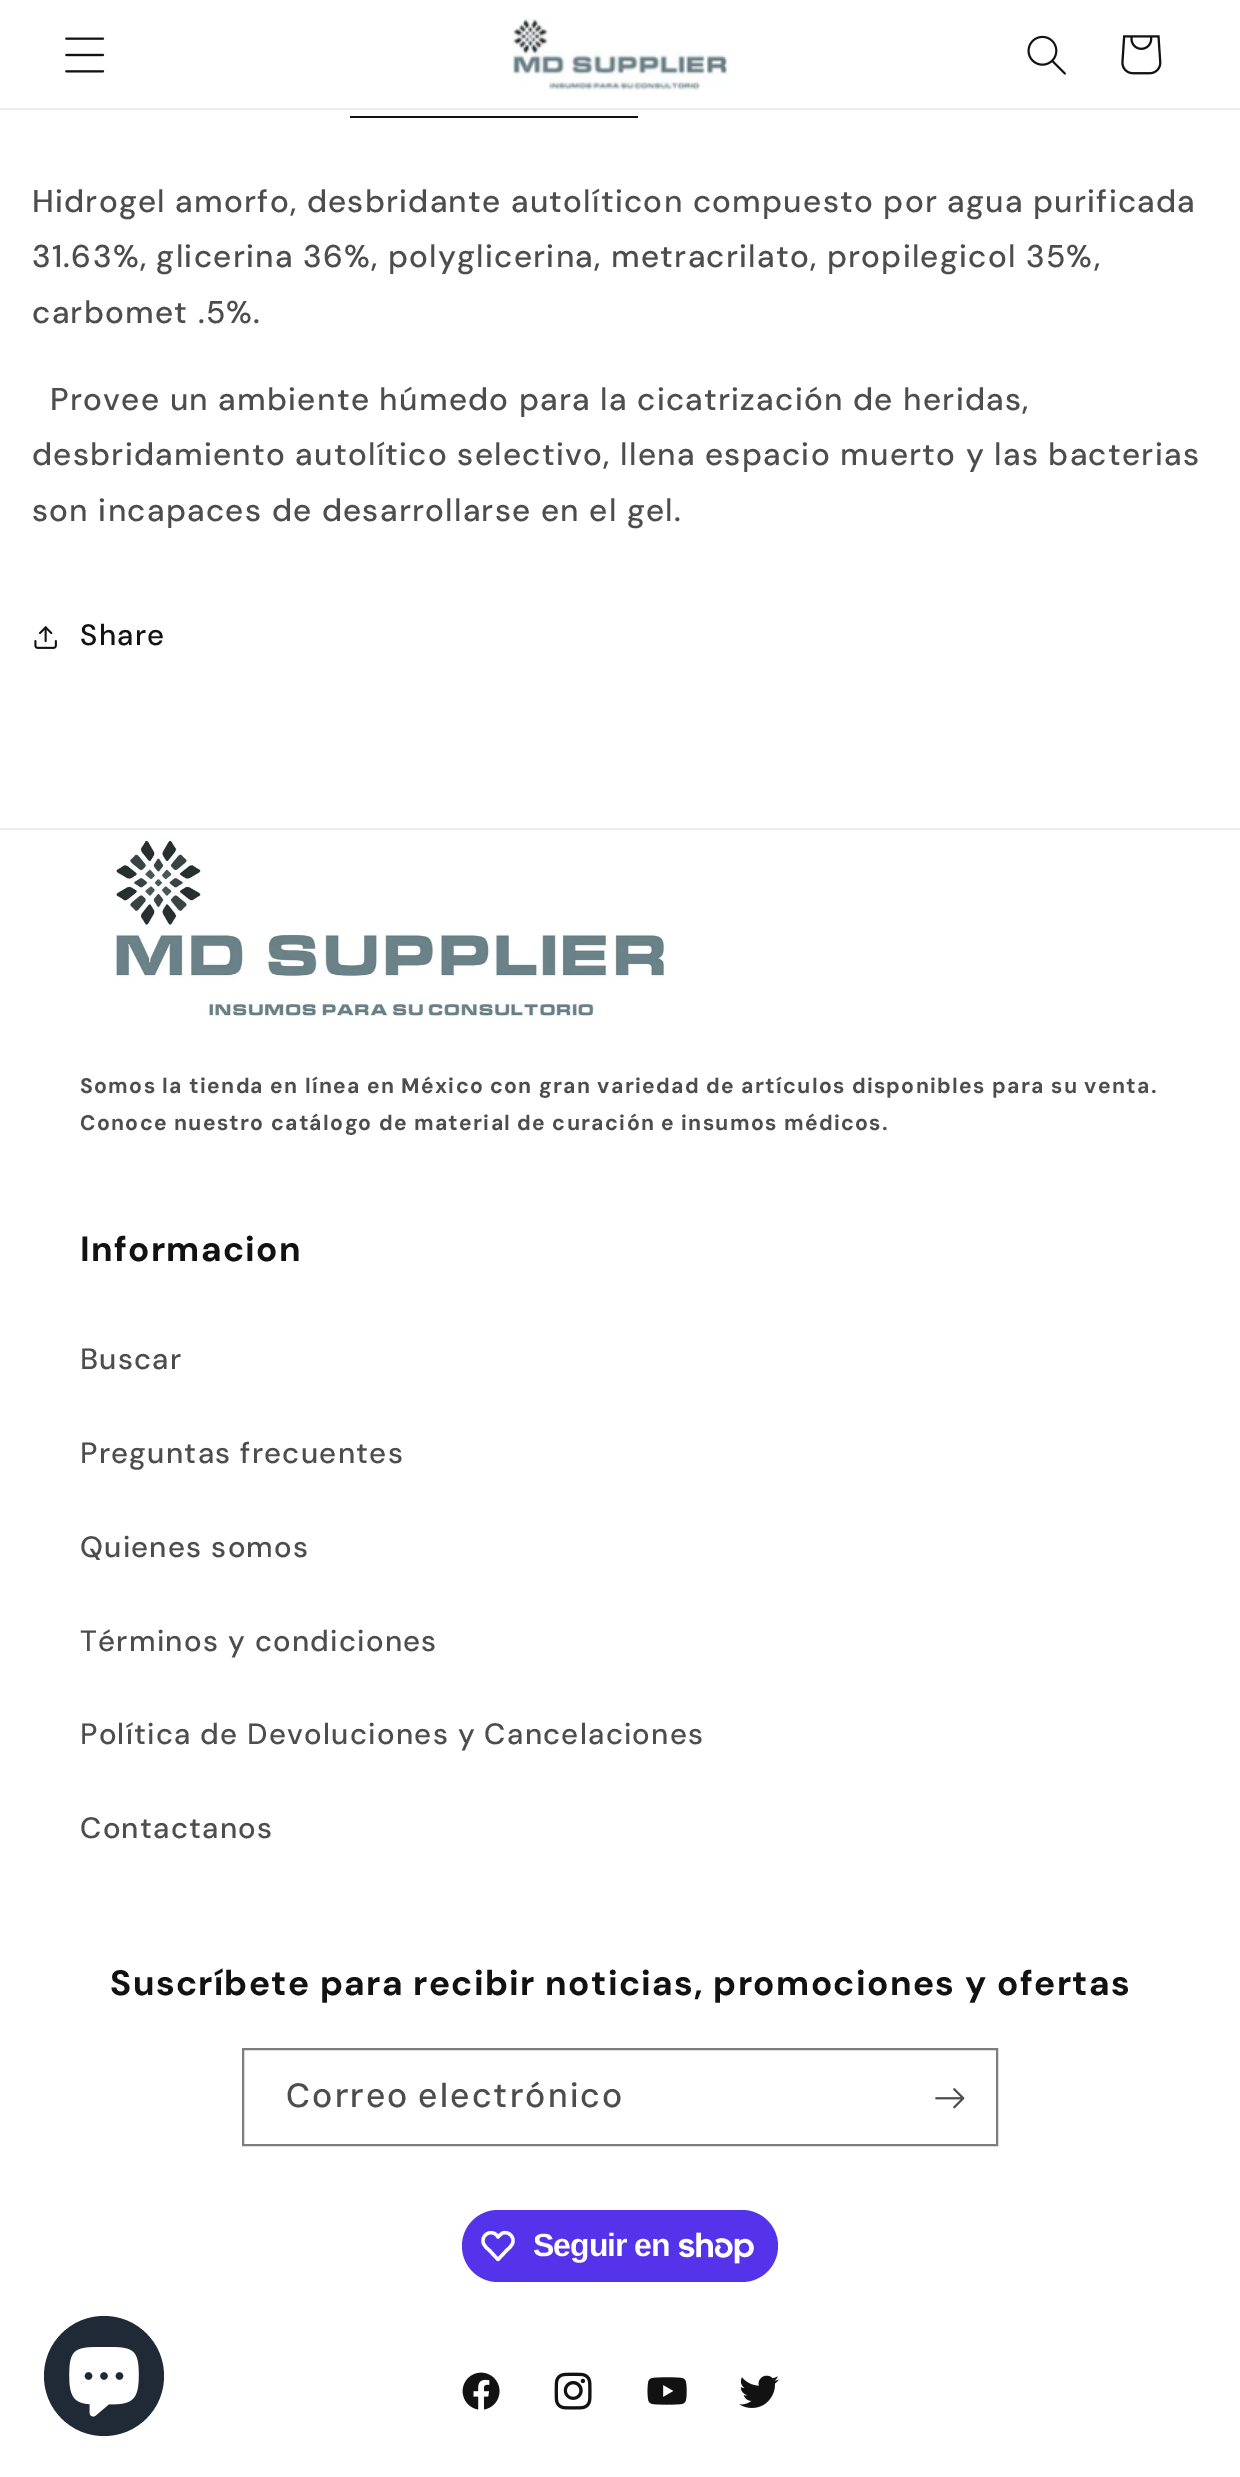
%!PS-Adobe-3.0
%%BoundingBox: 0 0 1240 2477
%%LanguageLevel: 3
%%Pages: 1
%%EndComments
%%BeginProlog
/setink { dup -16 bitshift 255 div exch dup -8 bitshift 255 and 255 div exch 255 and 255 div setrgbcolor } def
/usefont { [ exch dup neg 0 0 3 -1 roll 0 0 ] selectfont } def
/disc { newpath 0 360 arc closepath } def
/rrect { 5 dict begin { /r /h /w /y /x } { exch def } forall
  x r add y moveto x w add y 2 copy h add r arct x w add y h add x 1 index r arct
  x y h add x y r arct x y 2 copy exch w add exch r arct closepath end } def
/drawimage { 5 dict begin { /h /w /y /x /name } { exch def } forall
  gsave x y translate w h scale
  w h 8 [w 0 0 h 0 0] name (r) file false 3 colorimage grestore end } def
%%EndProlog
%%BeginSetup
<< /PageSize [1240 2477] >> setpagedevice
%%EndSetup
%%Page: 1 1
0 2477 translate 1 -1 scale
4 setmiterlimit
16#FFFFFF setink
0 0 1240 2477 rectfill
16#ECECEC setink
0 108 1240 2 rectfill
(img1.raw) 65 37 40 36 drawimage
(img2.raw) 512 18 217 73 drawimage
(img3.raw) 1027 35 39 40 drawimage
(img4.raw) 1121 35 41 40 drawimage
16#121212 setink
350 116 288 2 rectfill
/DMSans-Medium 31.5 usefont
16#4D4D4D setink
32 212 moveto 1.25 0 (Hidrogel amorfo, desbridante autolíticon compuesto por agua purificada) ashow
32 267 moveto 1.25 0 (31.63%, glicerina 36%, polyglicerina, metracrilato, propilegicol 35%,) ashow
32 323 moveto 1.25 0 (carbomet .5%.) ashow
50 410 moveto 1.25 0 (Provee un ambiente húmedo para la cicatrización de heridas,) ashow
32 465 moveto 1.25 0 (desbridamiento autolítico selectivo, llena espacio muerto y las bacterias) ashow
32 521 moveto 1.25 0 (son incapaces de desarrollarse en el gel.) ashow
(img5.raw) 34 626 23 23 drawimage
/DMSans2-Medium 29.4 usefont
16#121212 setink
80 645 moveto 1.25 0 (Share) ashow
16#ECECEC setink
0 828 1240 2 rectfill
(img6.raw) 116 839 549 180 drawimage
/DMSans-Bold 21.1 usefont
16#4D4D4D setink
80 1093 moveto -0.25 0 32 1.25 0 (Somos la tienda en línea en México con gran variedad de artículos disponibles para su venta.) awidthshow
80 1130 moveto -0.25 0 32 1.25 0 (Conoce nuestro catálogo de material de curación e insumos médicos.) awidthshow
/DMSans2-Bold 35.2 usefont
16#121212 setink
80 1261 moveto 1.32 0 (Informacion) ashow
/DMSans2-Medium 29.4 usefont
16#4D4D4D setink
80 1369 moveto 1.25 0 (Buscar) ashow
80 1463 moveto 1.25 0 (Preguntas frecuentes) ashow
80 1557 moveto 1.25 0 (Quienes somos) ashow
80 1651 moveto 1.25 0 (Términos y condiciones) ashow
80 1744 moveto 1.25 0 (Política de Devoluciones y Cancelaciones) ashow
80 1838 moveto 1.25 0 (Contactanos) ashow
/DMSans2-Bold 35.2 usefont
16#121212 setink
110 1995 moveto 1.32 0 (Suscríbete para recibir noticias, promociones y ofertas) ashow
16#7D7D7D setink
2 setlinewidth
243 2049 754 96 rectstroke
/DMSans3-Medium 33.6 usefont
16#4D4D4D setink
286 2107 moveto -2 0 32 2.1 0 (Correo electrónico) awidthshow
(img7.raw) 935 2088 30 21 drawimage
16#5433EB setink
462 2210 316 72 36 rrect fill
16#FFFFFF setink
3.3 setlinewidth
1 setlinejoin
496.5 2235 moveto 498 2237 lineto 499.5 2235.5 501 2233.5 503 2233 curveto 509 2231 515 2237.5 512.5 2243.5 curveto 511.5 2246.5 508.5 2248.5 506.5 2250.5 curveto 498 2259.5 lineto 489.5 2250.5 lineto 487.5 2248.5 484.5 2246.5 483.5 2243.5 curveto 480.5 2235.5 490.5 2229 496.5 2235 curveto closepath stroke
/LiberationSans-Bold 32 usefont
533 2256 moveto -1 0 (Seguir en) ashow
(img8.raw) 679 2232 75 32 drawimage
(img9.raw) 462 2372 38 38 drawimage
(img10.raw) 554 2372 38 38 drawimage
(img11.raw) 647 2377 40 28 drawimage
(img12.raw) 739 2375 40 33 drawimage
16#202A36 setink
104 2376 60 disc fill
(img13.raw) 69 2347 70 70 drawimage
showpage
%%EOF
